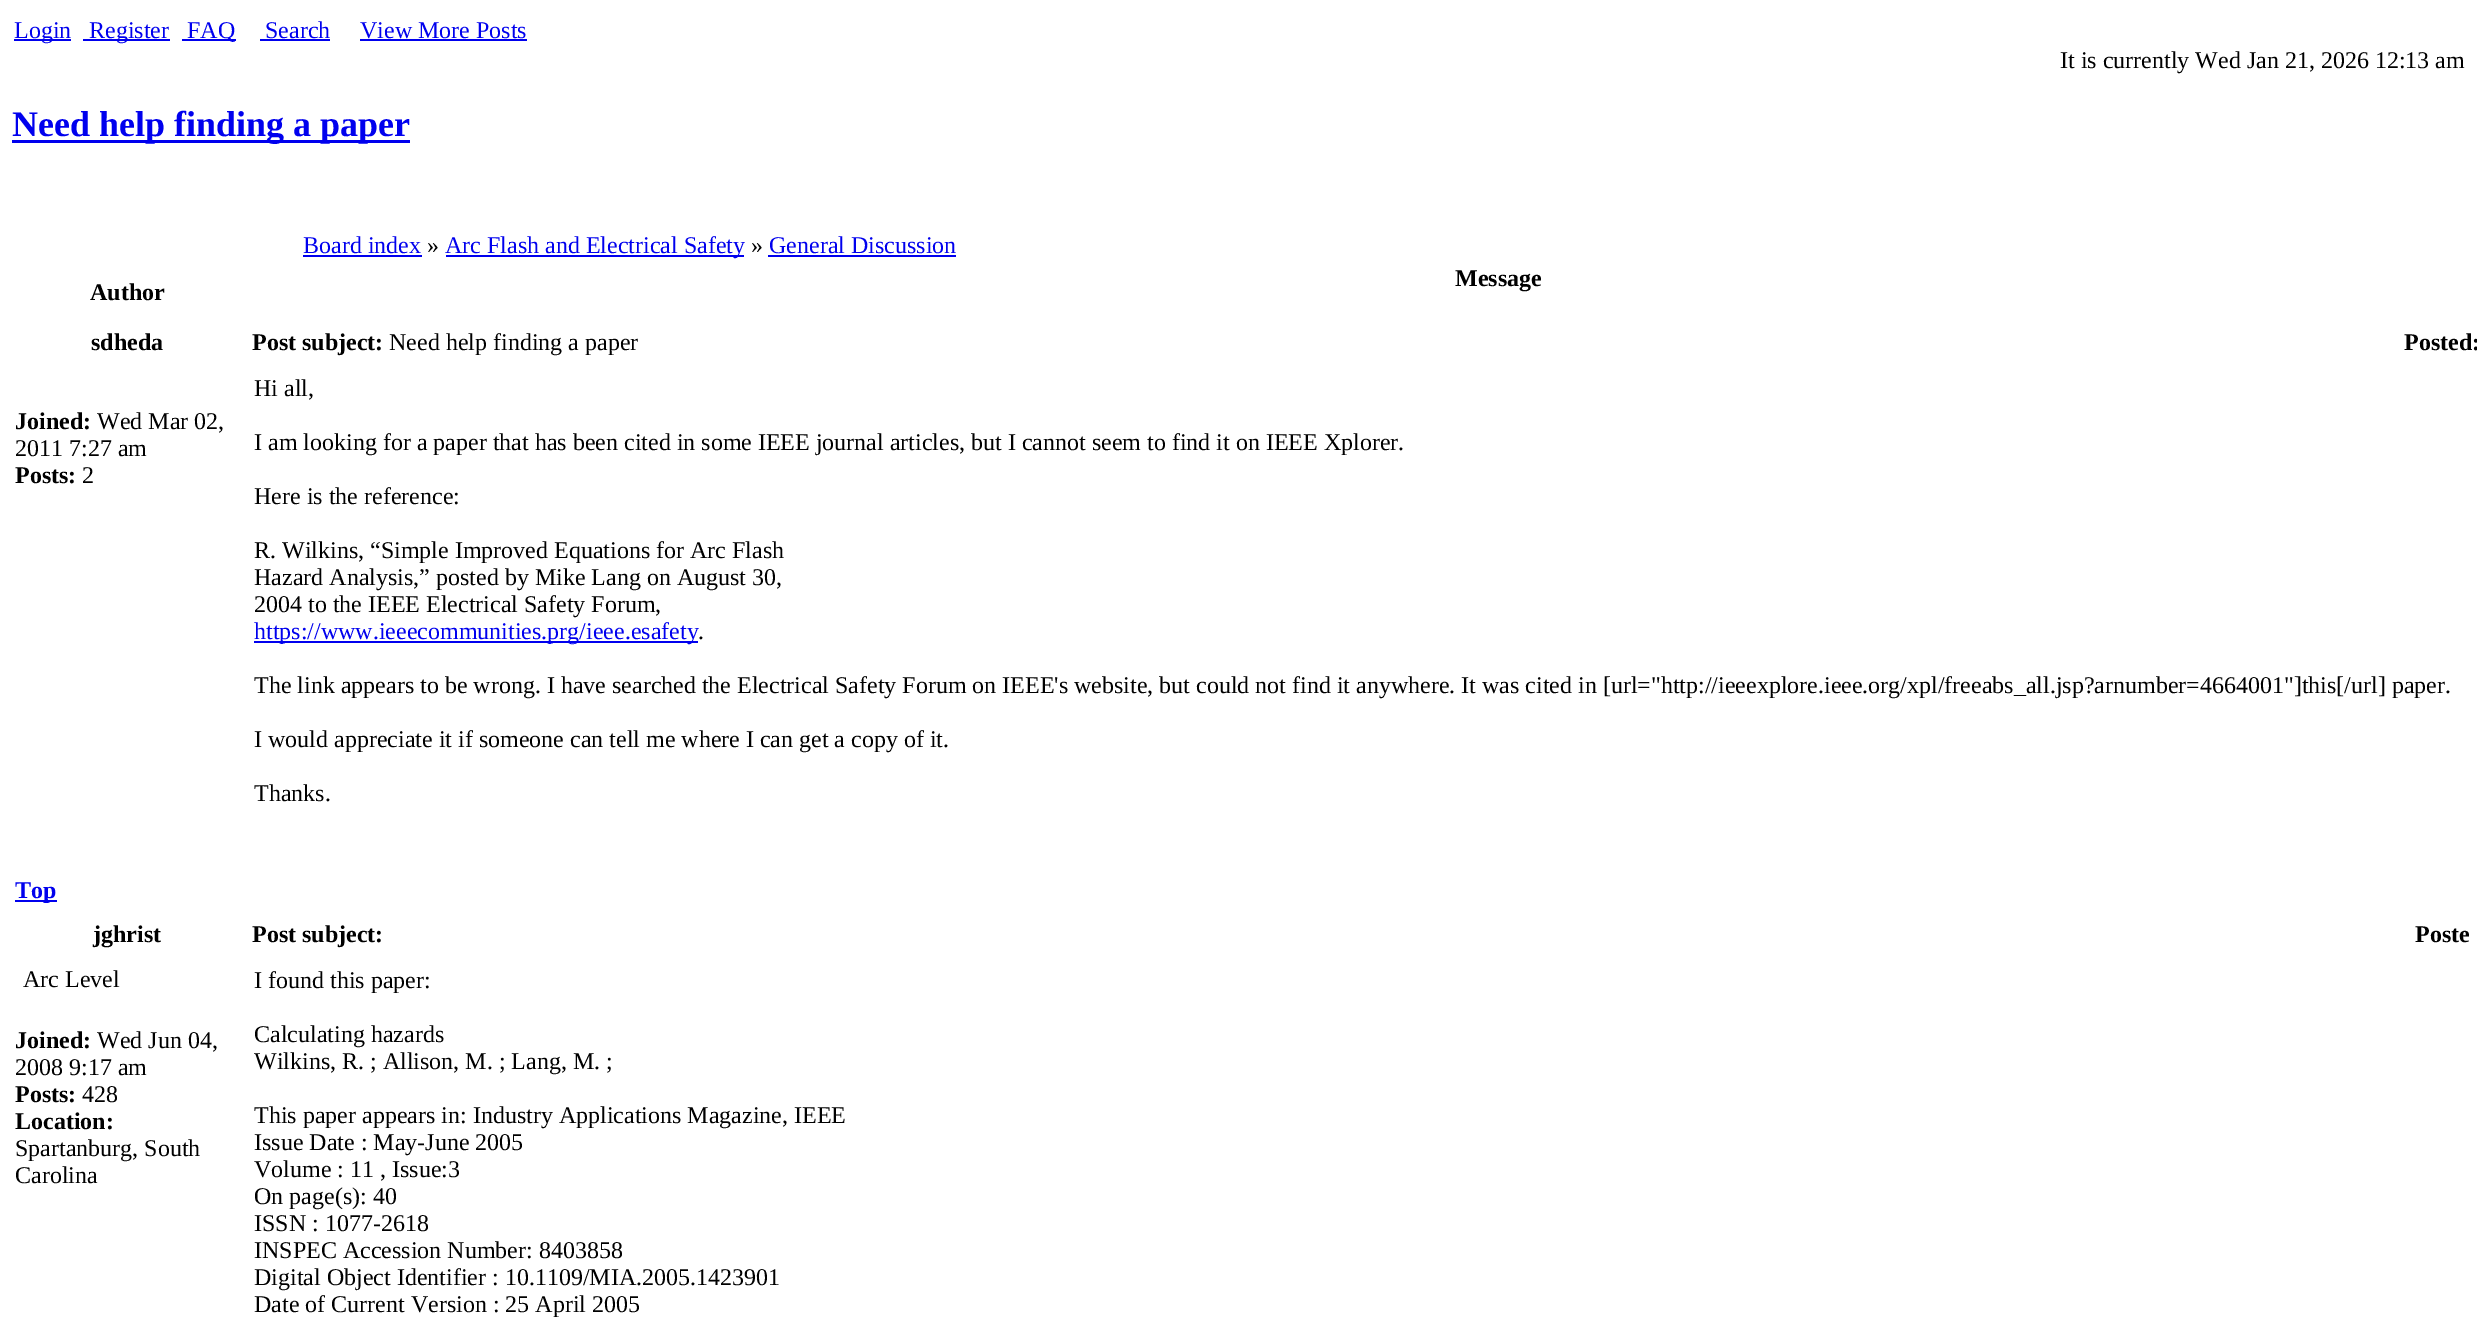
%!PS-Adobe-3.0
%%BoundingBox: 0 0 2477 1322
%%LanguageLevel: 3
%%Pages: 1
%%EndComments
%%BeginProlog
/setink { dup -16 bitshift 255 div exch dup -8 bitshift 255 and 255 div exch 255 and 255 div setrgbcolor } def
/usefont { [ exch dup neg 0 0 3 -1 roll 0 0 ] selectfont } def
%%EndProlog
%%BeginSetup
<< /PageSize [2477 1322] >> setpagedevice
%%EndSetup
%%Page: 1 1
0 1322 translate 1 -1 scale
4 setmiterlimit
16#FFFFFF setink
0 0 2477 1322 rectfill
16#0000EE setink
14 39 57 2 rectfill
/LiberationSerif-Regular 24 usefont
14 38 moveto (Login) show
83 39 87 2 rectfill
89 38 moveto (Register) show
182 39 54 2 rectfill
187 38 moveto (FAQ) show
265 38 moveto (Search) show
260 39 70 2 rectfill
360 38 moveto (View More Posts) show
360 39 167 2 rectfill
16#000000 setink
2060 68 moveto (It is currently Wed Jan 21, 2026 12:13 am) show
16#0000EE setink
12 140 398 3 rectfill
/LiberationSerif-Bold 36 usefont
12 136 moveto (Need help finding a paper) show
/LiberationSerif-Regular 24 usefont
303 253 moveto (Board index) show
303 255 119 2 rectfill
16#000000 setink
427 253 moveto (») show
16#0000EE setink
446 255 298 2 rectfill
445 253 moveto (Arc Flash and Electrical Safety) show
16#000000 setink
751 253 moveto (») show
16#0000EE setink
769 253 moveto (General Discussion) show
768 255 188 2 rectfill
/LiberationSerif-Bold 24 usefont
16#000000 setink
[
    [(Author) 90 300]
    [(Message) 1455 286]
    [(sdheda) 91 350]
    [(Post subject:) 252 350]
] { aload pop moveto show } forall
/LiberationSerif-Regular 24 usefont
389 350 moveto (Need help finding a paper) show
/LiberationSerif-Bold 24 usefont
2404 350 moveto (Posted:) show
15 429 moveto (Joined:) show
/LiberationSerif-Regular 24 usefont
97 429 moveto (Wed Mar 02,) show
15 456 moveto (2011 7:27 am) show
/LiberationSerif-Bold 24 usefont
15 483 moveto (Posts:) show
/LiberationSerif-Regular 24 usefont
[
    [(2) 82 483]
    [(Hi all,) 254 396]
    [(I am looking for a paper that has been cited in some IEEE journal articles, but I cannot seem to find it on IEEE Xplorer.) 254 450]
    [(Here is the reference:) 254 504]
    [(R. Wilkins, “Simple Improved Equations for Arc Flash) 254 558]
    [(Hazard Analysis,” posted by Mike Lang on August 30,) 254 585]
    [(2004 to the IEEE Electrical Safety Forum,) 254 612]
] { aload pop moveto show } forall
16#0000EE setink
254 641 444 2 rectfill
254 639 moveto (https://www.ieeecommunities.prg/ieee.esafety) show
16#000000 setink
[
    [(.) 698 639]
    [(The link appears to be wrong. I have searched the Electrical Safety Forum on IEEE's website, but could not find it anywhere. It was cited in [url="http://ieeexplore.ieee.org/xpl/freeabs_all.jsp?arnumber=4664001"]this[/url] paper.) 254 693]
    [(I would appreciate it if someone can tell me where I can get a copy of it.) 254 747]
    [(Thanks.) 254 801]
] { aload pop moveto show } forall
16#0000EE setink
15 900 42 2 rectfill
/LiberationSerif-Bold 24 usefont
15 898 moveto (Top) show
16#000000 setink
[
    [(jghrist) 93 942]
    [(Post subject:) 252 942]
    [(Poste) 2415 942]
] { aload pop moveto show } forall
/LiberationSerif-Regular 24 usefont
23 987 moveto (Arc Level) show
/LiberationSerif-Bold 24 usefont
15 1048 moveto (Joined:) show
/LiberationSerif-Regular 24 usefont
97 1048 moveto (Wed Jun 04,) show
15 1075 moveto (2008 9:17 am) show
/LiberationSerif-Bold 24 usefont
15 1102 moveto (Posts:) show
/LiberationSerif-Regular 24 usefont
82 1102 moveto (428) show
/LiberationSerif-Bold 24 usefont
15 1129 moveto (Location:) show
/LiberationSerif-Regular 24 usefont
[
    [(Spartanburg, South) 15 1156]
    [(Carolina) 15 1183]
    [(I found this paper:) 254 988]
    [(Calculating hazards) 254 1042]
    [(Wilkins, R. ; Allison, M. ; Lang, M. ;) 254 1069]
    [(This paper appears in: Industry Applications Magazine, IEEE) 254 1123]
    [(Issue Date : May-June 2005) 254 1150]
    [(Volume : 11 , Issue:3) 254 1177]
    [(On page\(s\): 40) 254 1204]
    [(ISSN : 1077-2618) 254 1231]
    [(INSPEC Accession Number: 8403858) 254 1258]
    [(Digital Object Identifier : 10.1109/MIA.2005.1423901) 254 1285]
    [(Date of Current Version : 25 April 2005) 254 1312]
] { aload pop moveto show } forall
showpage
%%EOF
